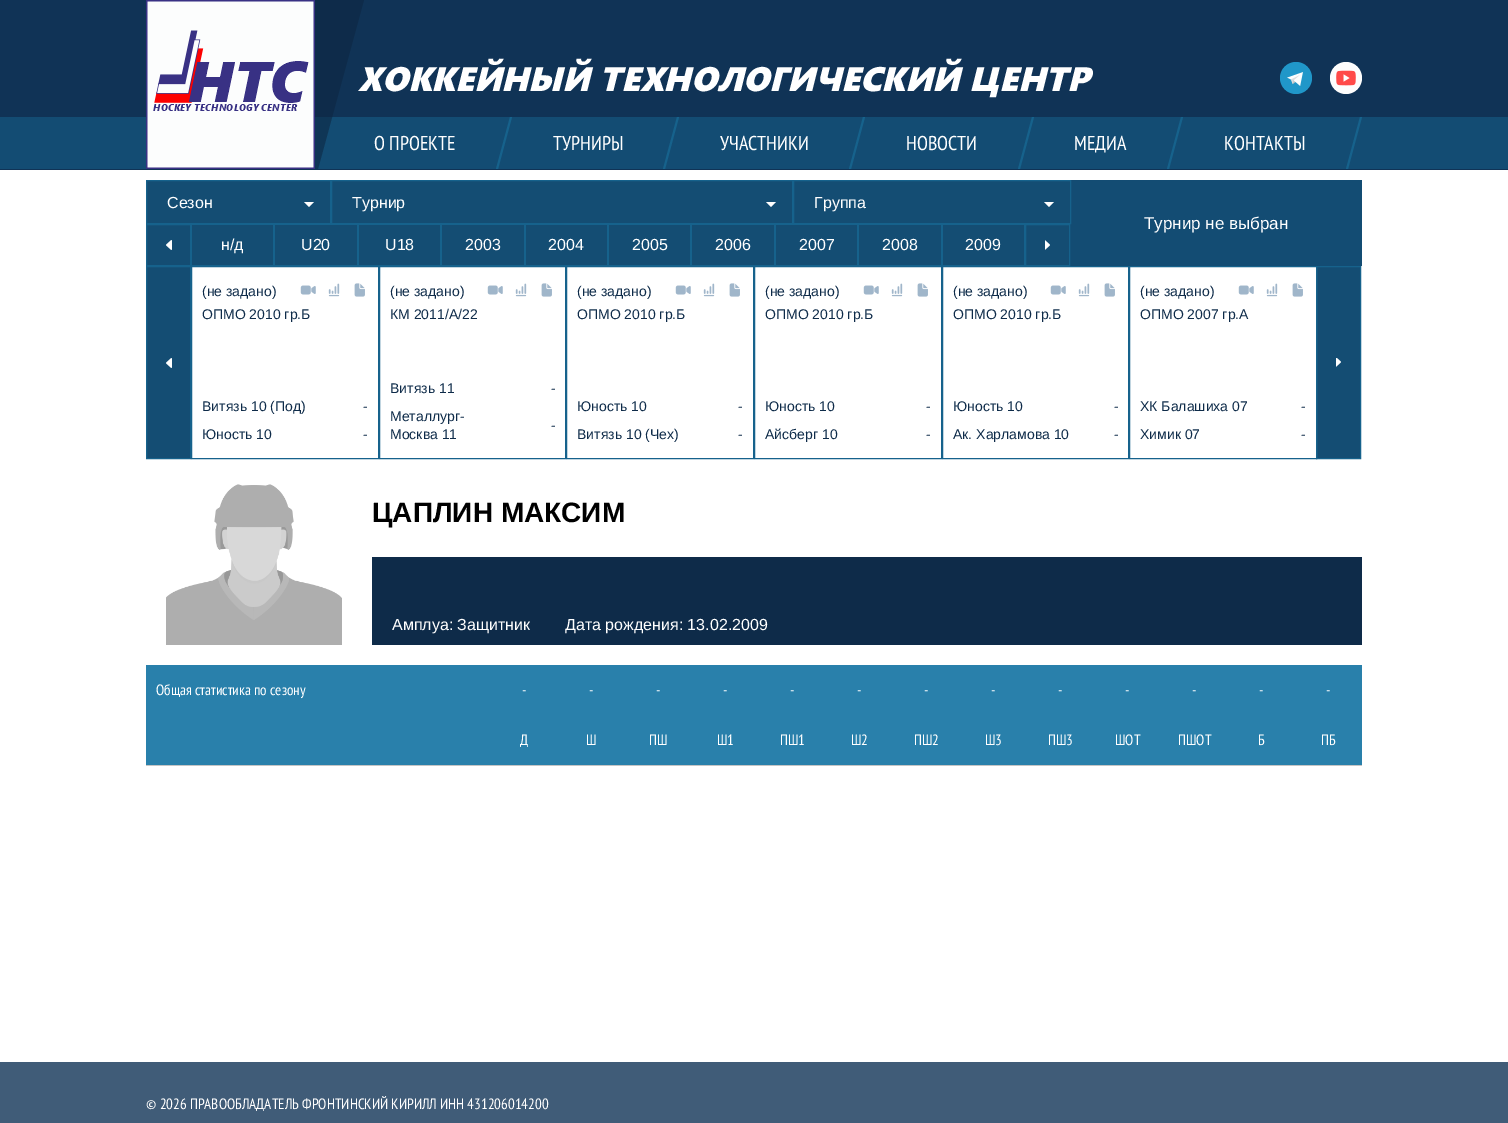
%!PS-Adobe-3.0
%%BoundingBox: 0 0 1508 1123
%%LanguageLevel: 3
%%Pages: 1
%%EndComments
%%BeginProlog
/setink { dup -16 bitshift 255 div exch dup -8 bitshift 255 and 255 div exch 255 and 255 div setrgbcolor } def
/usefont { [ exch dup neg 0 0 3 -1 roll 0 0 ] selectfont } def
/setalpha { dup .setfillconstantalpha .setstrokeconstantalpha } def
/disc { newpath 0 360 arc closepath } def
/drawimage { 5 dict begin { /h /w /y /x /name } { exch def } forall
  gsave x y translate w h scale
  w h 8 [w 0 0 h 0 0] name (r) file false 3 colorimage grestore end } def
%%EndProlog
%%BeginSetup
<< /PageSize [1508 1123] /PageUsesTransparency true >> setpagedevice
%%EndSetup
%%Page: 1 1
0 .pushpdf14devicefilter
0 1123 translate 1 -1 scale
4 setmiterlimit
16#FFFFFF setink
0 0 1508 1123 rectfill
16#103356 setink
0 0 1508 170 rectfill
16#134C73 setink
0 117 1508 52 rectfill
0.59 setalpha
16#0C2641 setink
264 0 moveto 364 0 lineto 318 169 lineto 218 169 lineto closepath fill
1 setalpha
(img1.raw) 146 0 169 169 drawimage
/SegoeUI-BlackItalic 34 usefont
16#FFFFFF setink
358 91 moveto (ХОККЕЙНЫЙ ТЕХНОЛОГИЧЕСКИЙ ЦЕНТР) show
16#2097C9 setink
1296 78 16 disc fill
(img2.raw) 1287 72 16 14 drawimage
16#FDFDFD setink
1346 78 16 disc fill
(img3.raw) 1336 70 20 16 drawimage
16#16628C setink
510 117 moveto 512 117 lineto 498 169 lineto 496 169 lineto closepath fill
/PTSansNarrow-Regular 20 usefont
16#FFFFFF setink
374 150 moveto (О ПРОЕКТЕ) show
16#16628C setink
677 117 moveto 679 117 lineto 665 169 lineto 663 169 lineto closepath fill
16#FFFFFF setink
553 150 moveto (ТУРНИРЫ) show
16#16628C setink
863 117 moveto 865 117 lineto 851 169 lineto 849 169 lineto closepath fill
16#FFFFFF setink
720 150 moveto (УЧАСТНИКИ) show
16#16628C setink
1032 117 moveto 1034 117 lineto 1020 169 lineto 1018 169 lineto closepath fill
16#FFFFFF setink
906 150 moveto (НОВОСТИ) show
16#16628C setink
1181 117 moveto 1183 117 lineto 1169 169 lineto 1167 169 lineto closepath fill
16#FFFFFF setink
1074 150 moveto (МЕДИА) show
16#16628C setink
1360 117 moveto 1362 117 lineto 1348 169 lineto 1346 169 lineto closepath fill
16#FFFFFF setink
1224 150 moveto (КОНТАКТЫ) show
16#144D73 setink
146.5 180.5 moveto 330.5 180.5 lineto 330.5 223.5 lineto 146.5 223.5 lineto closepath gsave fill grestore
16#16628C setink
stroke
/LiberationSans-Regular 16 usefont
16#FFFFFF setink
167 208 moveto (Сезон) show
304 202 moveto 314 202 lineto 309 207 lineto closepath fill
16#144D73 setink
331.5 180.5 moveto 792.5 180.5 lineto 792.5 223.5 lineto 331.5 223.5 lineto closepath gsave fill grestore
16#16628C setink
stroke
16#FFFFFF setink
352 208 moveto (Турнир) show
766 202 moveto 776 202 lineto 771 207 lineto closepath fill
16#134C73 setink
1070 180 292 86 rectfill
16#144D73 setink
793.5 180.5 moveto 1070.5 180.5 lineto 1070.5 223.5 lineto 793.5 223.5 lineto closepath gsave fill grestore
16#16628C setink
stroke
16#FFFFFF setink
814 208 moveto (Группа) show
1044 202 moveto 1054 202 lineto 1049 207 lineto closepath fill
16#144D73 setink
146.5 224.5 moveto 190.5 224.5 lineto 190.5 265.5 lineto 146.5 265.5 lineto closepath gsave fill grestore
16#16628C setink
stroke
(img4.raw) 166 240 6 10 drawimage
16#144D73 setink
1025.5 224.5 moveto 1069.5 224.5 lineto 1069.5 265.5 lineto 1025.5 265.5 lineto closepath gsave fill grestore
16#16628C setink
stroke
(img5.raw) 1045 240 5 10 drawimage
191.5 224.5 82 41 rectstroke
16#144D73 setink
192 225 81 40 rectfill
16#FFFFFF setink
221 250 moveto (н/д) show
16#16628C setink
274.5 224.5 83 41 rectstroke
16#144D73 setink
275 225 82 40 rectfill
16#FFFFFF setink
301 250 moveto (U20) show
16#16628C setink
358.5 224.5 82 41 rectstroke
16#144D73 setink
359 225 81 40 rectfill
16#FFFFFF setink
385 250 moveto (U18) show
16#16628C setink
441.5 224.5 83 41 rectstroke
16#144D73 setink
442 225 82 40 rectfill
16#FFFFFF setink
465 250 moveto (2003) show
16#16628C setink
525.5 224.5 82 41 rectstroke
16#144D73 setink
526 225 81 40 rectfill
16#FFFFFF setink
548 250 moveto (2004) show
16#16628C setink
608.5 224.5 82 41 rectstroke
16#144D73 setink
609 225 81 40 rectfill
16#FFFFFF setink
632 250 moveto (2005) show
16#16628C setink
691.5 224.5 83 41 rectstroke
16#144D73 setink
692 225 82 40 rectfill
16#FFFFFF setink
715 250 moveto (2006) show
16#16628C setink
775.5 224.5 82 41 rectstroke
16#144D73 setink
776 225 81 40 rectfill
16#FFFFFF setink
799 250 moveto (2007) show
16#16628C setink
858.5 224.5 83 41 rectstroke
16#144D73 setink
859 225 82 40 rectfill
16#FFFFFF setink
882 250 moveto (2008) show
16#16628C setink
942.5 224.5 82 41 rectstroke
16#144D73 setink
943 225 81 40 rectfill
16#FFFFFF setink
965 250 moveto (2009) show
/LiberationSans-Regular 17 usefont
1144 229 moveto (Турнир не выбран) show
16#144D73 setink
146.5 266.5 moveto 190.5 266.5 lineto 190.5 458.5 lineto 146.5 458.5 lineto closepath gsave fill grestore
16#16628C setink
stroke
(img4.raw) 166 358 6 10 drawimage
16#144D73 setink
1316.5 266.5 moveto 1360.5 266.5 lineto 1360.5 458.5 lineto 1316.5 458.5 lineto closepath gsave fill grestore
16#16628C setink
stroke
(img6.raw) 1336 358 5 9 drawimage
191.5 266.5 187 192 rectstroke
/LiberationSans-Regular 14 usefont
16#0E2B49 setink
202 296 moveto (\(не задано\)) show
(img7.raw) 300 285 16 10 drawimage
(img8.raw) 328 283 12 14 drawimage
(img9.raw) 354 283 11 14 drawimage
[
    [(ОПМО 2010 гр.Б) 202 319]
    [(Витязь 10 \(Под\)) 202 411]
    [(-) 363 411]
    [(Юность 10) 202 439]
    [(-) 363 439]
] { aload pop moveto show } forall
16#16628C setink
379.5 266.5 186 192 rectstroke
16#0E2B49 setink
390 296 moveto (\(не задано\)) show
(img7.raw) 487 285 16 10 drawimage
(img8.raw) 515 283 12 14 drawimage
(img9.raw) 541 283 11 14 drawimage
[
    [(КМ 2011/А/22) 390 319]
    [(Витязь 11) 390 393]
    [(-) 551 393]
    [(Металлург-) 390 421]
    [(Москва 11) 390 439]
    [(-) 551 430]
] { aload pop moveto show } forall
16#16628C setink
566.5 266.5 187 192 rectstroke
16#0E2B49 setink
577 296 moveto (\(не задано\)) show
(img7.raw) 675 285 16 10 drawimage
(img8.raw) 703 283 12 14 drawimage
(img9.raw) 729 283 11 14 drawimage
[
    [(ОПМО 2010 гр.Б) 577 319]
    [(Юность 10) 577 411]
    [(-) 738 411]
    [(Витязь 10 \(Чех\)) 577 439]
    [(-) 738 439]
] { aload pop moveto show } forall
16#16628C setink
754.5 266.5 187 192 rectstroke
16#0E2B49 setink
765 296 moveto (\(не задано\)) show
(img7.raw) 863 285 16 10 drawimage
(img8.raw) 891 283 12 14 drawimage
(img9.raw) 917 283 11 14 drawimage
[
    [(ОПМО 2010 гр.Б) 765 319]
    [(Юность 10) 765 411]
    [(-) 926 411]
    [(Айсберг 10) 765 439]
    [(-) 926 439]
] { aload pop moveto show } forall
16#16628C setink
942.5 266.5 186 192 rectstroke
16#0E2B49 setink
953 296 moveto (\(не задано\)) show
(img7.raw) 1050 285 16 10 drawimage
(img8.raw) 1078 283 12 14 drawimage
(img9.raw) 1104 283 11 14 drawimage
[
    [(ОПМО 2010 гр.Б) 953 319]
    [(Юность 10) 953 411]
    [(-) 1114 411]
    [(Ак. Харламова 10) 953 439]
    [(-) 1114 439]
] { aload pop moveto show } forall
16#16628C setink
1129.5 266.5 187 192 rectstroke
16#0E2B49 setink
1140 296 moveto (\(не задано\)) show
(img7.raw) 1238 285 16 10 drawimage
(img8.raw) 1266 283 12 14 drawimage
(img9.raw) 1292 283 11 14 drawimage
[
    [(ОПМО 2007 гр.А) 1140 319]
    [(ХК Балашиха 07) 1140 411]
    [(-) 1301 411]
    [(Химик 07) 1140 439]
    [(-) 1301 439]
] { aload pop moveto show } forall
(img10.raw) 166 484 176 161 drawimage
/LiberationSans-Bold 28 usefont
16#000000 setink
372 522 moveto (ЦАПЛИН МАКСИМ) show
16#0E2B49 setink
372 557 990 88 rectfill
/LiberationSans-Regular 16 usefont
16#FFFFFF setink
392 630 moveto (Амплуа: Защитник) show
565 630 moveto (Дата рождения: 13.02.2009) show
16#2980AB setink
146 665 345 100 rectfill
/PTSansNarrow-Regular 15 usefont
16#FFFFFF setink
156 695 moveto (Общая статистика по сезону) show
16#C5C5C5 setink
146 765 1216 1 rectfill
16#2980AB setink
491 665 871 50 rectfill
16#FFFFFF setink
[
    [(-) 522 695]
    [(-) 589 695]
    [(-) 656 695]
    [(-) 723 695]
    [(-) 790 695]
    [(-) 857 695]
    [(-) 924 695]
    [(-) 991 695]
    [(-) 1058 695]
    [(-) 1125 695]
    [(-) 1192 695]
    [(-) 1259 695]
    [(-) 1326 695]
] { aload pop moveto show } forall
16#2980AB setink
491 715 871 50 rectfill
16#FFFFFF setink
[
    [(Д) 520 745]
    [(Ш) 586 745]
    [(ПШ) 649 745]
    [(Ш1) 717 745]
    [(ПШ1) 780 745]
    [(Ш2) 851 745]
    [(ПШ2) 914 745]
    [(Ш3) 985 745]
    [(ПШ3) 1048 745]
    [(ШОТ) 1115 745]
    [(ПШОТ) 1178 745]
    [(Б) 1258 745]
    [(ПБ) 1321 745]
] { aload pop moveto show } forall
16#405C78 setink
0 1062 1508 61 rectfill
16#FFFFFF setink
146 1109 moveto (© 2026 ПРАВООБЛАДАТЕЛЬ ФРОНТИНСКИЙ КИРИЛЛ ИНН 431206014200) show
.poppdf14devicefilter showpage
%%EOF
